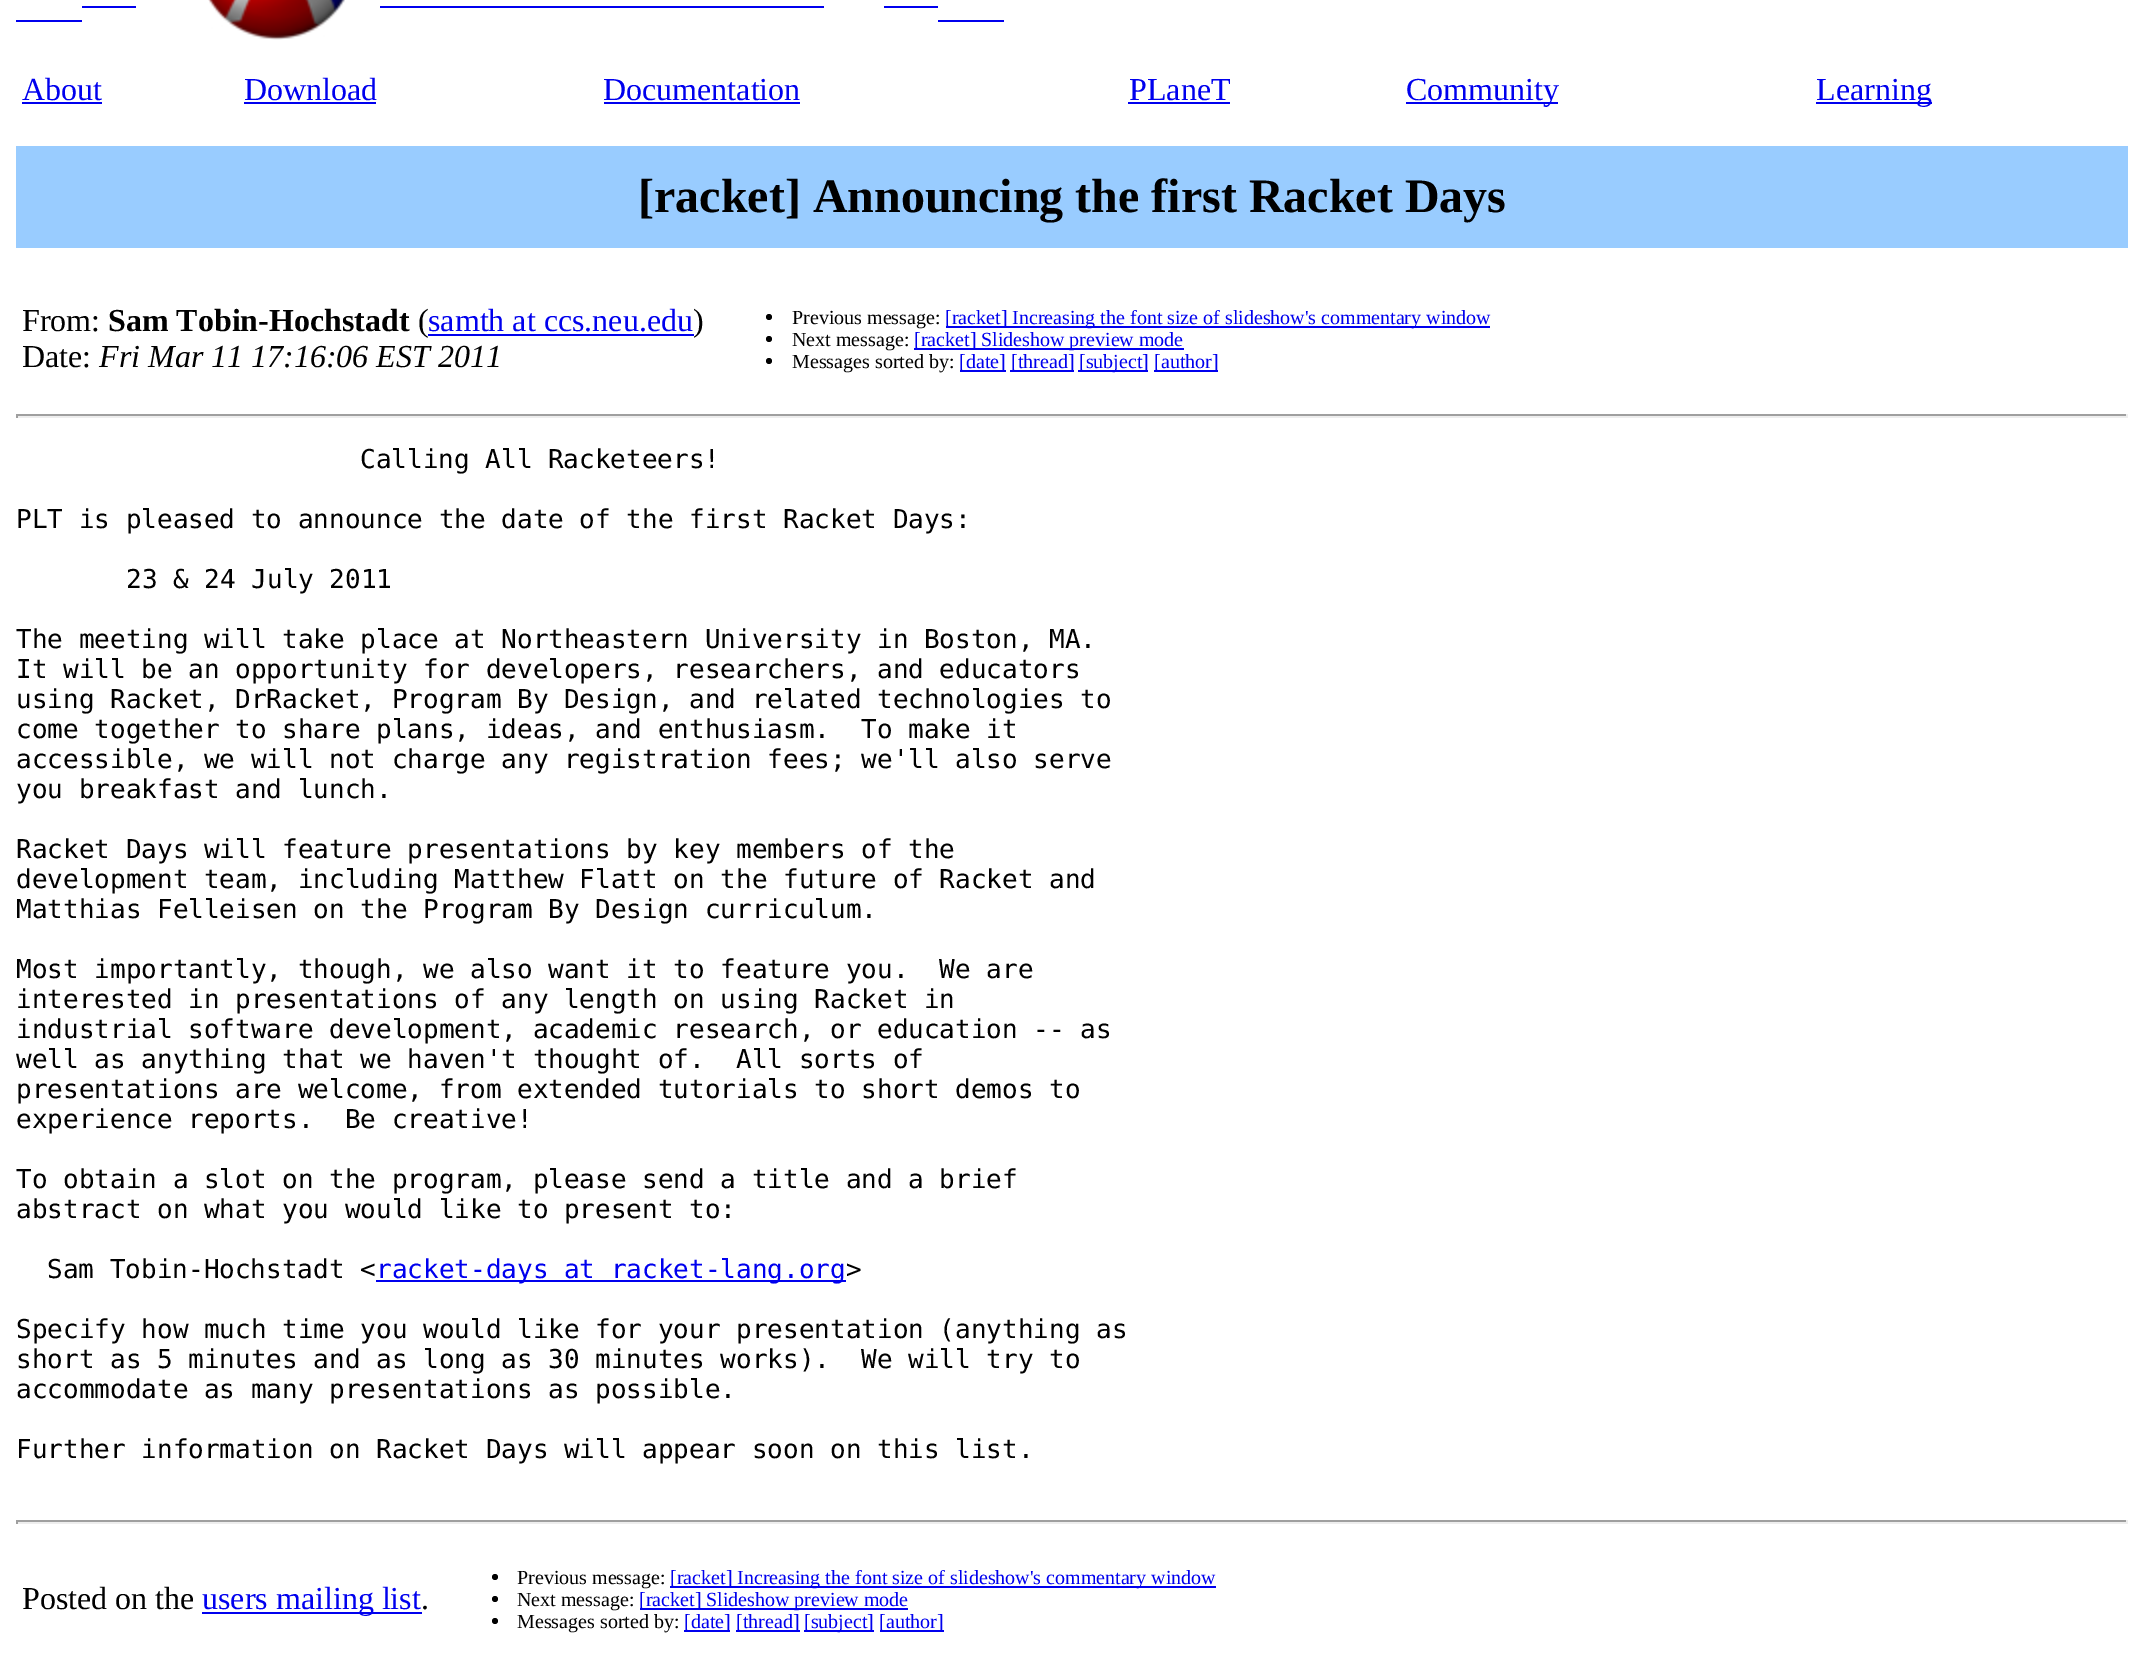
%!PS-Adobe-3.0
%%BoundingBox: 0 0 2143 1673
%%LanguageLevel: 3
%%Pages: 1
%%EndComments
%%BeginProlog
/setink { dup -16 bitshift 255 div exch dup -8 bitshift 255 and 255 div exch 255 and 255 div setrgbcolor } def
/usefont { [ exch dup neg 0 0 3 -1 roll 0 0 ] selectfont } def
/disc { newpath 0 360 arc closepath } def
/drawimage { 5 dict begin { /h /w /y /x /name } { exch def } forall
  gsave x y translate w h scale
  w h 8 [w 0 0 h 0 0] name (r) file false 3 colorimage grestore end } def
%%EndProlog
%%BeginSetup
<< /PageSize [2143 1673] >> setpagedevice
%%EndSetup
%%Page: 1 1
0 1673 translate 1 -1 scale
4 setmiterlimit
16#FFFFFF setink
0 0 2143 1673 rectfill
16#0000EE setink
82 6 54 2 rectfill
(img1.raw) 208 0 137 40 drawimage
[
    [380 6 444 2 16#0000EE]
    [884 6 54 2 16#0000EE]
    [16 20 66 2 16#0000EE]
    [938 20 66 2 16#0000EE]
] { aload pop setink rectfill } forall
/LiberationSerif-Regular 32 usefont
22 100 moveto (About) show
22 102 80 2 rectfill
244 100 moveto (Download) show
244 102 132 2 rectfill
603 100 moveto (Documentation) show
604 102 196 2 rectfill
1129 100 moveto (PLaneT) show
1128 102 102 2 rectfill
1406 102 152 2 rectfill
1406 100 moveto (Community) show
1816 102 116 2 rectfill
1816 100 moveto (Learning) show
16#99CCFF setink
16 146 2112 102 rectfill
/LiberationSerif-Bold 48 usefont
16#000000 setink
638 212 moveto ([racket] Announcing the first Racket Days) show
/LiberationSerif-Regular 32 usefont
22 331 moveto (From:) show
/LiberationSerif-Bold 32 usefont
108 331 moveto (Sam Tobin-Hochstadt) show
/LiberationSerif-Regular 32 usefont
418 331 moveto (\() show
16#0000EE setink
428 331 moveto (samth at ccs.neu.edu) show
428 334 266 2 rectfill
16#000000 setink
693 331 moveto (\)) show
22 367 moveto (Date:) show
/LiberationSerif-Italic 32 usefont
99 367 moveto (Fri Mar 11 17:16:06 EST 2011) show
769 317 3 disc fill
/LiberationSerif-Regular 20 usefont
792 324 moveto (Previous message:) show
16#0000EE setink
946 326 544 2 rectfill
945 324 moveto ([racket] Increasing the font size of slideshow's commentary window) show
16#000000 setink
769 339 3 disc fill
792 346 moveto (Next message:) show
16#0000EE setink
914 348 270 2 rectfill
914 346 moveto ([racket] Slideshow preview mode) show
16#000000 setink
769 361 3 disc fill
792 368 moveto (Messages sorted by:) show
16#0000EE setink
960 370 46 2 rectfill
959 368 moveto ([date]) show
1010 370 64 2 rectfill
1011 368 moveto ([thread]) show
1078 370 70 2 rectfill
1079 368 moveto ([subject]) show
1154 370 64 2 rectfill
1154 368 moveto ([author]) show
[
    [16 414 2112 2 16#9F9F9F]
    [2126 414 2 4 16#EEEEEE]
    [16 416 2112 2 16#EEEEEE]
    [16 414 2 4 16#9F9F9F]
] { aload pop setink rectfill } forall
/DejaVuSansMono-Regular 26 usefont
16#000000 setink
[
    [(Calling All Racketeers!) 360 468]
    [(PLT is pleased to announce the date of the first Racket Days:) 16 528]
    [(23 & 24 July 2011) 126 588]
    [(The meeting will take place at Northeastern University in Boston, MA.) 16 648]
    [(It will be an opportunity for developers, researchers, and educators) 16 678]
    [(using Racket, DrRacket, Program By Design, and related technologies to) 16 708]
    [(come together to share plans, ideas, and enthusiasm.  To make it) 16 738]
    [(accessible, we will not charge any registration fees; we'll also serve) 16 768]
    [(you breakfast and lunch.) 16 798]
    [(Racket Days will feature presentations by key members of the) 16 858]
    [(development team, including Matthew Flatt on the future of Racket and) 16 888]
    [(Matthias Felleisen on the Program By Design curriculum.) 16 918]
    [(Most importantly, though, we also want it to feature you.  We are) 16 978]
    [(interested in presentations of any length on using Racket in) 16 1008]
    [(industrial software development, academic research, or education -- as) 16 1038]
    [(well as anything that we haven't thought of.  All sorts of) 16 1068]
    [(presentations are welcome, from extended tutorials to short demos to) 16 1098]
    [(experience reports.  Be creative!) 16 1128]
    [(To obtain a slot on the program, please send a title and a brief) 16 1188]
    [(abstract on what you would like to present to:) 16 1218]
    [(Sam Tobin-Hochstadt <) 47 1278]
] { aload pop moveto show } forall
16#0000EE setink
376 1280 470 2 rectfill
376 1278 moveto (racket-days at racket-lang.org) show
16#000000 setink
[
    [(>) 846 1278]
    [(Specify how much time you would like for your presentation \(anything as) 16 1338]
    [(short as 5 minutes and as long as 30 minutes works\).  We will try to) 16 1368]
    [(accommodate as many presentations as possible.) 16 1398]
    [(Further information on Racket Days will appear soon on this list.) 16 1458]
] { aload pop moveto show } forall
[
    [16 1520 2112 2 16#9F9F9F]
    [2126 1520 2 4 16#EEEEEE]
    [16 1522 2112 2 16#EEEEEE]
    [16 1520 2 4 16#9F9F9F]
] { aload pop setink rectfill } forall
/LiberationSerif-Regular 32 usefont
16#000000 setink
22 1609 moveto (Posted on the) show
16#0000EE setink
202 1612 220 2 rectfill
202 1609 moveto (users mailing list) show
16#000000 setink
421 1609 moveto (.) show
495 1577 3 disc fill
/LiberationSerif-Regular 20 usefont
517 1584 moveto (Previous message:) show
16#0000EE setink
670 1586 546 2 rectfill
670 1584 moveto ([racket] Increasing the font size of slideshow's commentary window) show
16#000000 setink
495 1599 3 disc fill
517 1606 moveto (Next message:) show
16#0000EE setink
640 1608 268 2 rectfill
639 1606 moveto ([racket] Slideshow preview mode) show
16#000000 setink
495 1621 3 disc fill
517 1628 moveto (Messages sorted by:) show
16#0000EE setink
684 1630 46 2 rectfill
684 1628 moveto ([date]) show
736 1630 64 2 rectfill
736 1628 moveto ([thread]) show
804 1630 70 2 rectfill
804 1628 moveto ([subject]) show
880 1630 64 2 rectfill
879 1628 moveto ([author]) show
showpage
%%EOF
